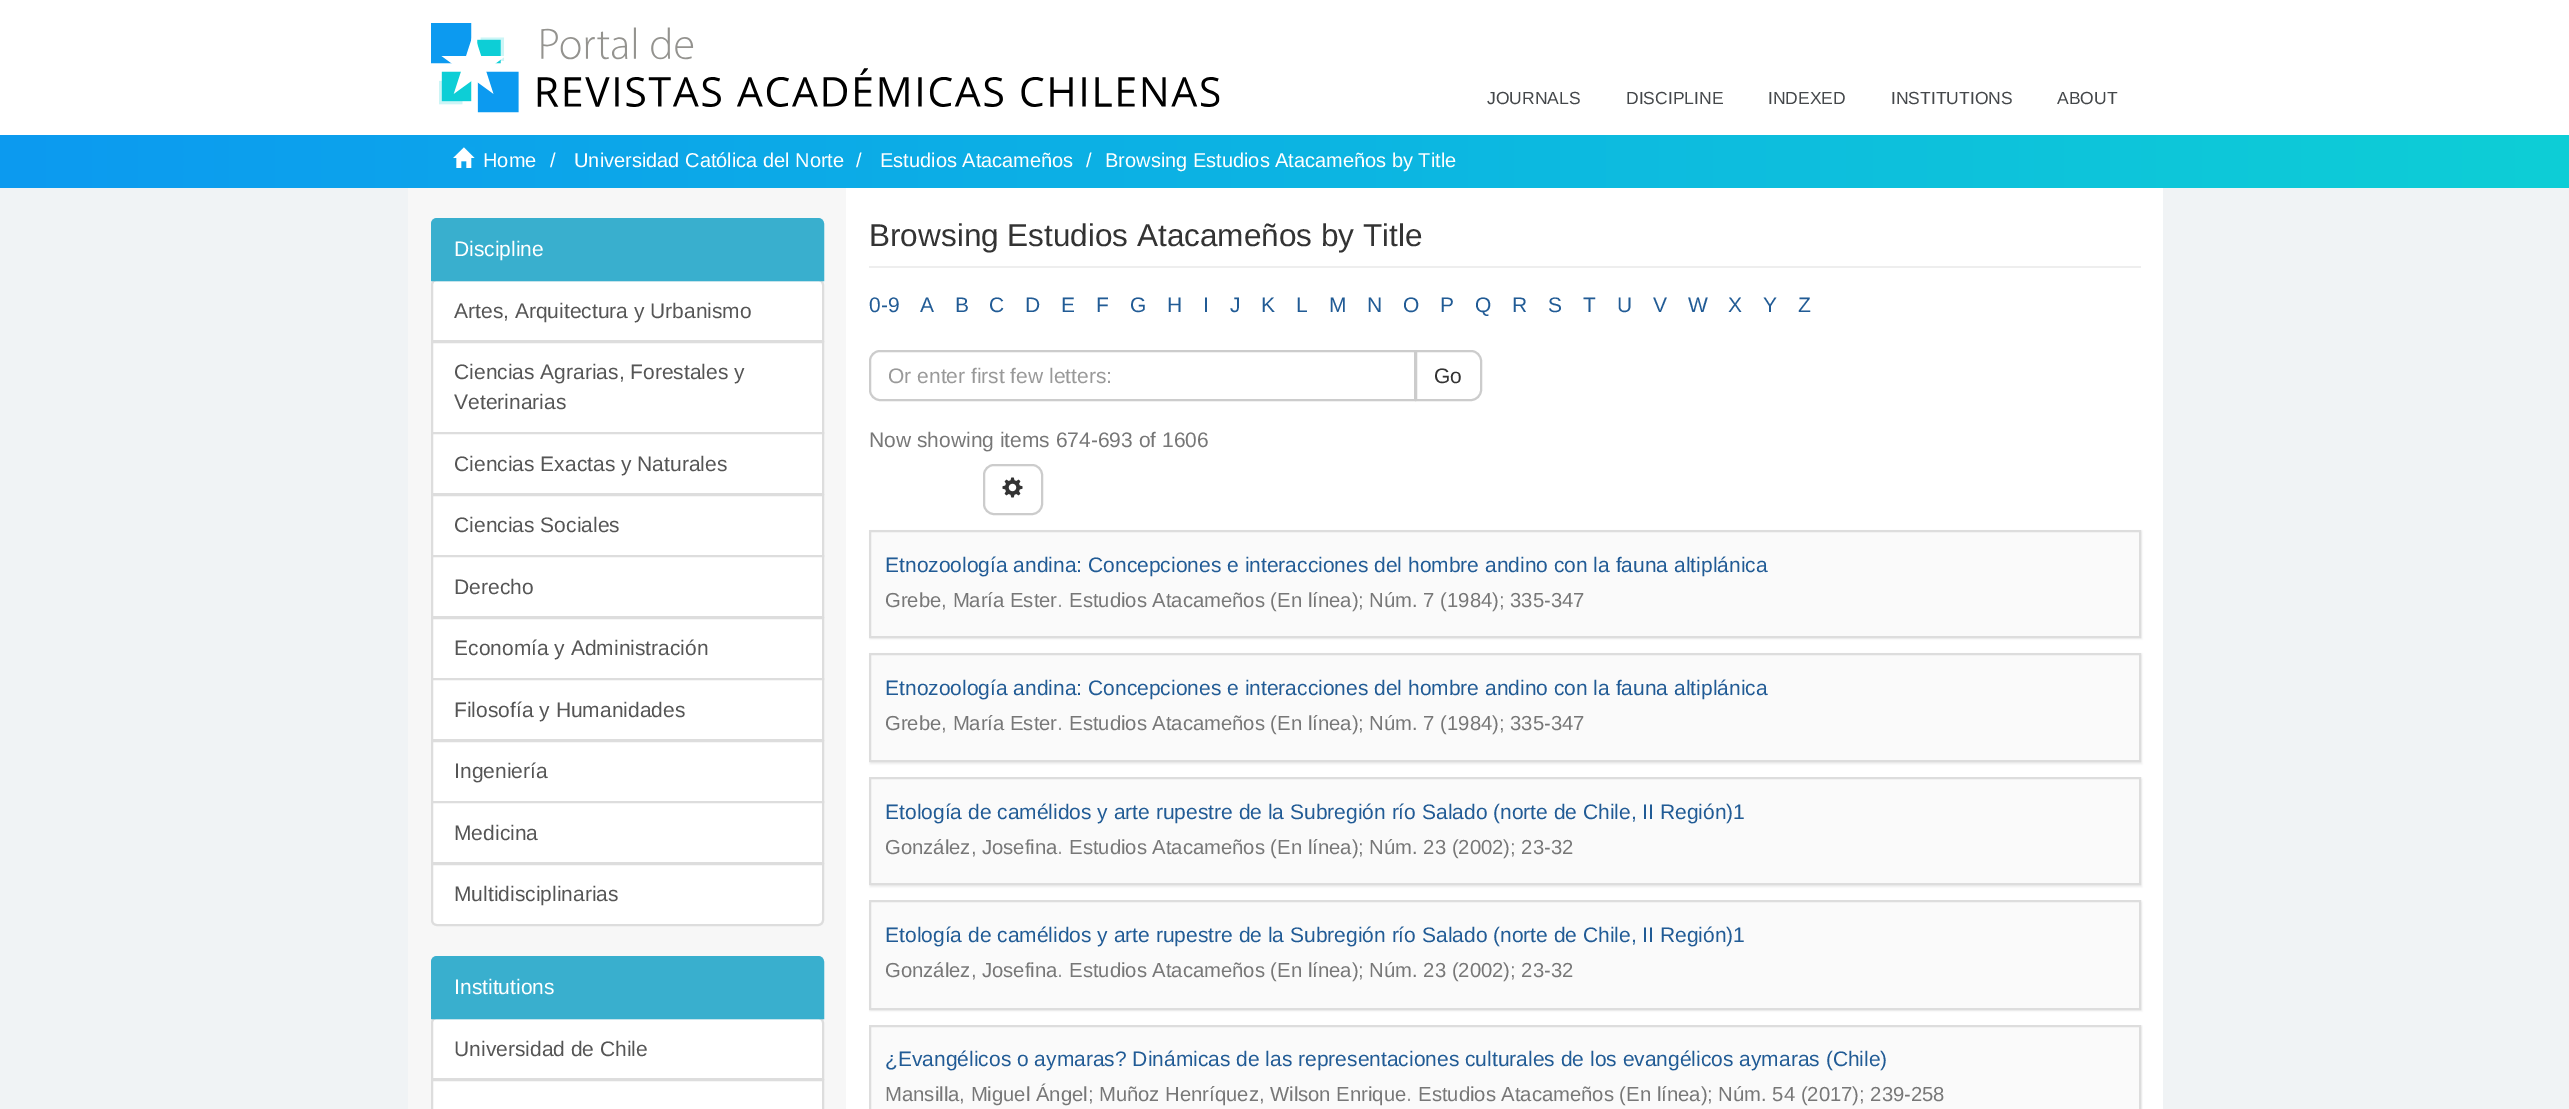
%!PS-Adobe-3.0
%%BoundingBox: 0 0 2569 1109
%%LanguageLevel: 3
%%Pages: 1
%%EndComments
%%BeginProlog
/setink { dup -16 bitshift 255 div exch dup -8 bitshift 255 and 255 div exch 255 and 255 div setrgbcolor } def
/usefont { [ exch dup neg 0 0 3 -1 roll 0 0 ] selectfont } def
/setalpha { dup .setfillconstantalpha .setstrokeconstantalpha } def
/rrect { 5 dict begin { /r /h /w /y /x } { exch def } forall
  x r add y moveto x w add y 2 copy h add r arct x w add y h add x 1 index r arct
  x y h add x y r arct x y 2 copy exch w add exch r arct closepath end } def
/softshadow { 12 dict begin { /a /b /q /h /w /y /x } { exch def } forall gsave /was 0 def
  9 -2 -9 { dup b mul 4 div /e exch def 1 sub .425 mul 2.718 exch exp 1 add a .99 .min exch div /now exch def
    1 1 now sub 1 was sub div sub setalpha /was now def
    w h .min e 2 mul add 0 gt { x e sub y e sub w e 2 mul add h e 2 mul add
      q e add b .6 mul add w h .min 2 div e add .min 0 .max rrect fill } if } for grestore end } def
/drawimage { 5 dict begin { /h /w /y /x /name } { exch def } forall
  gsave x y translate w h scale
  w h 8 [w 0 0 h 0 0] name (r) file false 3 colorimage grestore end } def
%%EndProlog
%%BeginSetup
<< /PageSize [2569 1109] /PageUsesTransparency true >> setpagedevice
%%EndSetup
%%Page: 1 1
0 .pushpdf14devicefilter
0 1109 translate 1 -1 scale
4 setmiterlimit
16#F0F3F5 setink
0 0 2569 1109 rectfill
16#FFFFFF setink
0 0 2569 135 rectfill
(img1.raw) 431 23 789 90 drawimage
/LiberationSans-Regular 17.5 usefont
16#44474A setink
[
    [(JOURNALS) 1487 104]
    [(DISCIPLINE) 1626 104]
    [(INDEXED) 1768 104]
    [(INSTITUTIONS) 1891 104]
    [(ABOUT) 2057 104]
] { aload pop moveto show } forall
gsave 0 135 moveto 2569 135 lineto 2569 188 lineto 0 188 lineto closepath clip newpath
<< /ShadingType 2 /ColorSpace /DeviceRGB /Coords [0 161 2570 161] /Extend [true true] /Function << /FunctionType 2 /Domain [0 1] /C0 [0.047 0.604 0.941] /C1 [0.051 0.808 0.839] /N 1 >> >> shfill grestore
(img2.raw) 453 147 22 21 drawimage
/LiberationSans-Regular 20 usefont
16#FFFFFF setink
[
    [(Home) 483 167]
    [(/) 550 167]
    [(Universidad Católica del Norte) 574 167]
    [(/) 856 167]
    [(Estudios Atacameños) 880 167]
    [(/) 1086 167]
    [(Browsing Estudios Atacameños by Title) 1105 167]
] { aload pop moveto show } forall
16#F7F7F7 setink
408 188 438 921 rectfill
16#FFFFFF setink
437 280 moveto 818 280 lineto 821 280 823 282 823 285 curveto 823 341 lineto 432 341 lineto 432 285 lineto 432 282 434 280 437 280 curveto closepath gsave fill grestore
16#DDDDDD setink
2 setlinewidth
stroke
16#39AFCE setink
437 219 moveto 818 219 lineto 821 219 823 221 823 224 curveto 823 280 lineto 432 280 lineto 432 224 lineto 432 221 434 219 437 219 curveto closepath gsave fill grestore
stroke
/LiberationSans-Regular 21 usefont
16#FFFFFF setink
454 256 moveto (Discipline) show
16#555555 setink
454 318 moveto (Artes, Arquitectura y Urbanismo) show
16#FFFFFF setink
432 342 moveto 823 342 lineto 823 433 lineto 432 433 lineto closepath gsave fill grestore
16#DDDDDD setink
stroke
16#555555 setink
454 379 moveto (Ciencias Agrarias, Forestales y) show
454 409 moveto (Veterinarias) show
16#FFFFFF setink
432 433 moveto 823 433 lineto 823 494 lineto 432 494 lineto closepath gsave fill grestore
16#DDDDDD setink
stroke
16#555555 setink
454 471 moveto (Ciencias Exactas y Naturales) show
16#FFFFFF setink
432 495 moveto 823 495 lineto 823 556 lineto 432 556 lineto closepath gsave fill grestore
16#DDDDDD setink
stroke
16#555555 setink
454 532 moveto (Ciencias Sociales) show
16#FFFFFF setink
432 556 moveto 823 556 lineto 823 617 lineto 432 617 lineto closepath gsave fill grestore
16#DDDDDD setink
stroke
16#555555 setink
454 594 moveto (Derecho) show
16#FFFFFF setink
432 618 moveto 823 618 lineto 823 679 lineto 432 679 lineto closepath gsave fill grestore
16#DDDDDD setink
stroke
16#555555 setink
454 655 moveto (Economía y Administración) show
16#FFFFFF setink
432 679 moveto 823 679 lineto 823 740 lineto 432 740 lineto closepath gsave fill grestore
16#DDDDDD setink
stroke
16#555555 setink
454 717 moveto (Filosofía y Humanidades) show
16#FFFFFF setink
432 741 moveto 823 741 lineto 823 802 lineto 432 802 lineto closepath gsave fill grestore
16#DDDDDD setink
stroke
16#555555 setink
454 778 moveto (Ingeniería) show
16#FFFFFF setink
432 802 moveto 823 802 lineto 823 863 lineto 432 863 lineto closepath gsave fill grestore
16#DDDDDD setink
stroke
16#555555 setink
454 840 moveto (Medicina) show
16#FFFFFF setink
432 864 moveto 823 864 lineto 823 920 lineto 823 923 821 925 818 925 curveto 437 925 lineto 434 925 432 923 432 920 curveto closepath gsave fill grestore
16#DDDDDD setink
stroke
16#555555 setink
454 901 moveto (Multidisciplinarias) show
16#FFFFFF setink
437 1018 moveto 818 1018 lineto 821 1018 823 1020 823 1023 curveto 823 1079 lineto 432 1079 lineto 432 1023 lineto 432 1020 434 1018 437 1018 curveto closepath gsave fill grestore
16#DDDDDD setink
stroke
16#39AFCE setink
437 957 moveto 818 957 lineto 821 957 823 959 823 962 curveto 823 1018 lineto 432 1018 lineto 432 962 lineto 432 959 434 957 437 957 curveto closepath gsave fill grestore
stroke
16#FFFFFF setink
454 994 moveto (Institutions) show
16#555555 setink
454 1056 moveto (Universidad de Chile) show
16#FFFFFF setink
432 1080 moveto 823 1080 lineto 823 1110 lineto 432 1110 lineto closepath gsave fill grestore
16#DDDDDD setink
stroke
16#FFFFFF setink
846 188 1317 921 rectfill
16#EEEEEE setink
869 266 1272 2 rectfill
/LiberationSans-Regular 31.5 usefont
16#333333 setink
869 246 moveto (Browsing Estudios Atacameños by Title) show
/LiberationSans-Regular 21 usefont
16#215B95 setink
[
    [(0-9) 869 312]
    [(A) 920 312]
    [(B) 955 312]
    [(C) 989 312]
    [(D) 1025 312]
    [(E) 1061 312]
    [(F) 1096 312]
    [(G) 1130 312]
    [(H) 1167 312]
    [(I) 1203 312]
    [(J) 1230 312]
    [(K) 1261 312]
    [(L) 1296 312]
    [(M) 1329 312]
    [(N) 1367 312]
    [(O) 1403 312]
    [(P) 1440 312]
    [(Q) 1475 312]
    [(R) 1512 312]
    [(S) 1548 312]
    [(T) 1583 312]
    [(U) 1617 312]
    [(V) 1653 312]
    [(W) 1688 312]
    [(X) 1728 312]
    [(Y) 1763 312]
    [(Z) 1798 312]
] { aload pop moveto show } forall
16#CCCCCC setink
1416 351 moveto 1471 351 lineto 1476.5 351 1481 355.5 1481 361 curveto 1481 390 lineto 1481 395.5 1476.5 400 1471 400 curveto 1416 400 lineto closepath stroke
16#FFFFFF setink
880 351 moveto 1415 351 lineto 1415 400 lineto 880 400 lineto 874.5 400 870 395.5 870 390 curveto 870 361 lineto 870 355.5 874.5 351 880 351 curveto closepath gsave fill grestore
16#CCCCCC setink
stroke
16#999999 setink
888 383 moveto (Or enter first few letters:) show
16#333333 setink
1434 383 moveto (Go) show
16#777777 setink
869 447 moveto (Now showing items 674-693 of 1606) show
16#CCCCCC setink
984 465 58 49 10 rrect stroke
(img3.raw) 1002 477 21 21 drawimage
gsave
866 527 moveto 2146 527 lineto 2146 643 lineto 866 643 lineto closepath 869 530 moveto 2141 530 lineto 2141 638 lineto 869 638 lineto closepath eoclip newpath
16#AAAAAA setink
870 531 1272 108 0 1 0.21 softshadow
grestore
0.21 setalpha
16#E6E6E6 setink
870 531 moveto 2140 531 lineto 2140 637 lineto 870 637 lineto closepath fill
1 setalpha
16#DDDDDD setink
870 531 moveto 2140 531 lineto 2140 637 lineto 870 637 lineto closepath stroke
16#215B95 setink
885 572 moveto (Etnozoología andina: Concepciones e interacciones del hombre andino con la fauna altiplánica) show
/LiberationSans-Regular 20.25 usefont
16#777777 setink
885 607 moveto (Grebe, María Ester) show
/LiberationSans-Regular 21 usefont
16#999999 setink
1057 607 moveto (.) show
/LiberationSans-Regular 20.25 usefont
16#777777 setink
1069 607 moveto (Estudios Atacameños \(En línea\); Núm. 7 \(1984\); 335-347) show
gsave
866 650 moveto 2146 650 lineto 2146 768 lineto 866 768 lineto closepath 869 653 moveto 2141 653 lineto 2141 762 lineto 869 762 lineto closepath eoclip newpath
16#AAAAAA setink
870 654 1272 110 0 1 0.21 softshadow
grestore
0.21 setalpha
16#E6E6E6 setink
870 654 moveto 2140 654 lineto 2140 761 lineto 870 761 lineto closepath fill
1 setalpha
16#DDDDDD setink
870 654 moveto 2140 654 lineto 2140 761 lineto 870 761 lineto closepath stroke
/LiberationSans-Regular 21 usefont
16#215B95 setink
885 695 moveto (Etnozoología andina: Concepciones e interacciones del hombre andino con la fauna altiplánica) show
/LiberationSans-Regular 20.25 usefont
16#777777 setink
885 730 moveto (Grebe, María Ester) show
/LiberationSans-Regular 21 usefont
16#999999 setink
1057 730 moveto (.) show
/LiberationSans-Regular 20.25 usefont
16#777777 setink
1069 730 moveto (Estudios Atacameños \(En línea\); Núm. 7 \(1984\); 335-347) show
gsave
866 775 moveto 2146 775 lineto 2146 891 lineto 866 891 lineto closepath 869 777 moveto 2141 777 lineto 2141 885 lineto 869 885 lineto closepath eoclip newpath
16#AAAAAA setink
870 779 1272 108 0 1 0.21 softshadow
grestore
0.21 setalpha
16#E6E6E6 setink
870 778 moveto 2140 778 lineto 2140 884 lineto 870 884 lineto closepath fill
1 setalpha
16#DDDDDD setink
870 778 moveto 2140 778 lineto 2140 884 lineto 870 884 lineto closepath stroke
/LiberationSans-Regular 21 usefont
16#215B95 setink
885 819 moveto (Etología de camélidos y arte rupestre de la Subregión río Salado \(norte de Chile, II Región\)1) show
/LiberationSans-Regular 20.25 usefont
16#777777 setink
885 854 moveto (González, Josefina) show
/LiberationSans-Regular 21 usefont
16#999999 setink
1057 854 moveto (.) show
/LiberationSans-Regular 20.25 usefont
16#777777 setink
1069 854 moveto (Estudios Atacameños \(En línea\); Núm. 23 \(2002\); 23-32) show
gsave
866 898 moveto 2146 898 lineto 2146 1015 lineto 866 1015 lineto closepath 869 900 moveto 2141 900 lineto 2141 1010 lineto 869 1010 lineto closepath eoclip newpath
16#AAAAAA setink
870 902 1272 109 0 1 0.21 softshadow
grestore
0.21 setalpha
16#E6E6E6 setink
870 901 moveto 2140 901 lineto 2140 1009 lineto 870 1009 lineto closepath fill
1 setalpha
16#DDDDDD setink
870 901 moveto 2140 901 lineto 2140 1009 lineto 870 1009 lineto closepath stroke
/LiberationSans-Regular 21 usefont
16#215B95 setink
885 942 moveto (Etología de camélidos y arte rupestre de la Subregión río Salado \(norte de Chile, II Región\)1) show
/LiberationSans-Regular 20.25 usefont
16#777777 setink
885 977 moveto (González, Josefina) show
/LiberationSans-Regular 21 usefont
16#999999 setink
1057 977 moveto (.) show
/LiberationSans-Regular 20.25 usefont
16#777777 setink
1069 977 moveto (Estudios Atacameños \(En línea\); Núm. 23 \(2002\); 23-32) show
gsave
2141 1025 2 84 rectclip
16#AAAAAA setink
870 1026 1272 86 0 1 0.21 softshadow
grestore
0.21 setalpha
16#E6E6E6 setink
870 1026 moveto 2140 1026 lineto 2140 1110 lineto 870 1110 lineto closepath fill
1 setalpha
16#DDDDDD setink
870 1026 moveto 2140 1026 lineto 2140 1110 lineto 870 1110 lineto closepath stroke
/LiberationSans-Regular 21 usefont
16#215B95 setink
885 1066 moveto (¿Evangélicos o aymaras? Dinámicas de las representaciones culturales de los evangélicos aymaras \(Chile\)) show
/LiberationSans-Regular 20.25 usefont
16#777777 setink
885 1101 moveto (Mansilla, Miguel Ángel; Muñoz Henríquez, Wilson Enrique) show
/LiberationSans-Regular 21 usefont
16#999999 setink
1406 1101 moveto (.) show
/LiberationSans-Regular 20.25 usefont
16#777777 setink
1418 1101 moveto (Estudios Atacameños \(En línea\); Núm. 54 \(2017\); 239-258) show
.poppdf14devicefilter showpage
%%EOF
